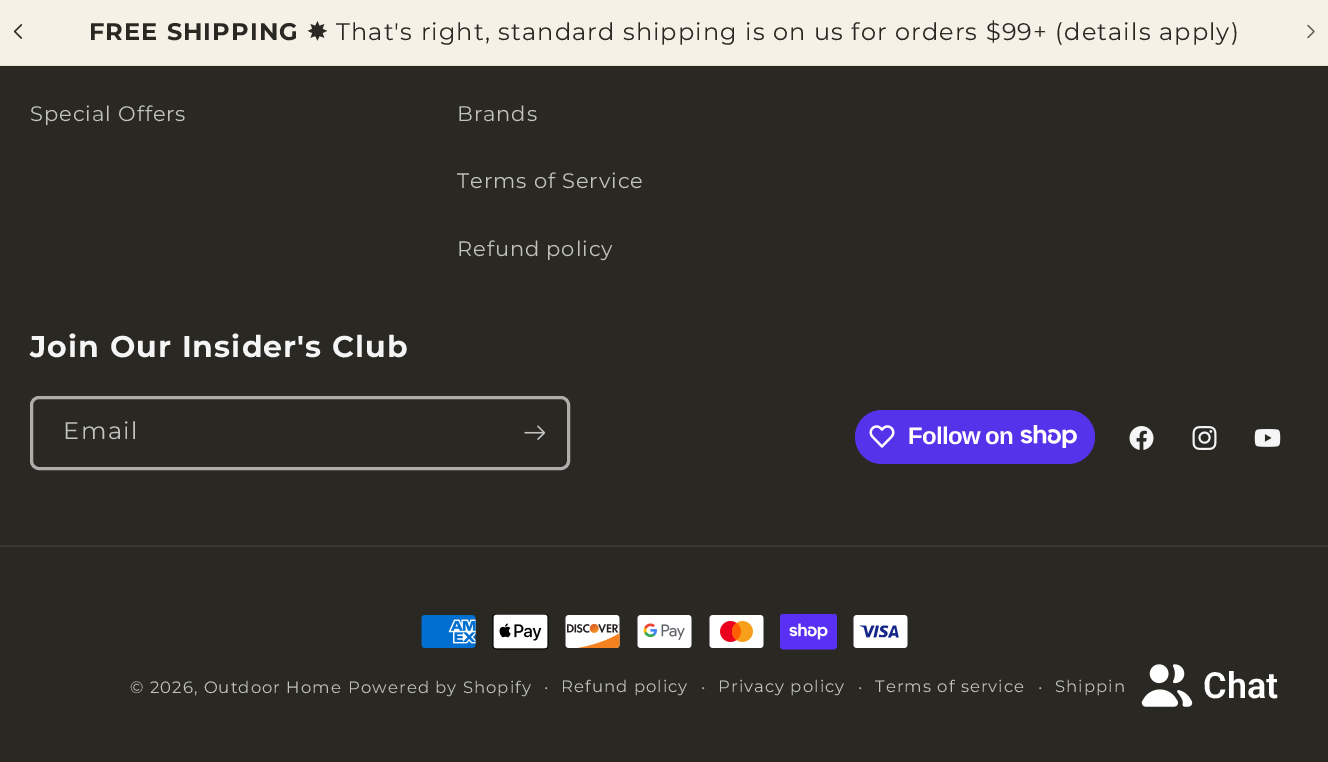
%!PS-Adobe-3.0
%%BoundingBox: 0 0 1328 762
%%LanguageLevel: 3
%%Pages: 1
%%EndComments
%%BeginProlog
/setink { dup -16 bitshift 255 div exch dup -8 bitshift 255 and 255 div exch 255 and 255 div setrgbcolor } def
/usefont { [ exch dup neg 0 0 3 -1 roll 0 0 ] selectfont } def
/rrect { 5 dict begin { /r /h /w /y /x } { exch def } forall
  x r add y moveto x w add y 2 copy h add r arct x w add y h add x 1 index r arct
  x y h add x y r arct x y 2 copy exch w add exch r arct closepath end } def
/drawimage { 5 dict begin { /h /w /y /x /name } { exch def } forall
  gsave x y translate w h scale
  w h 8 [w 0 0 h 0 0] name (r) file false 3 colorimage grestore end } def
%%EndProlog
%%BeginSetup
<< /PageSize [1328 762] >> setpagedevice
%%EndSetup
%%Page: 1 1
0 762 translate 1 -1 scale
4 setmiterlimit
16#292822 setink
0 0 1328 762 rectfill
16#F5F1E7 setink
0 0 1328 65 rectfill
16#E5E1D7 setink
0 65 1328 1 rectfill
(img1.raw) 13 24 10 15 drawimage
/Montserrat-Bold 24 usefont
16#292822 setink
89 40 moveto 1.12 0 (FREE SHIPPING) ashow
/DejaVuSans-Bold 24 usefont
307 40 moveto 1.12 0 (✸) ashow
/Montserrat-Regular 24 usefont
336 40 moveto 1.12 0 (That's right, standard shipping is on us for orders $99+ \(details apply\)) ashow
(img2.raw) 1307 24 8 15 drawimage
/Montserrat-Regular 21 usefont
16#C2C2C0 setink
30 121 moveto 0.9 0 (Special Offers) ashow
457 121 moveto 0.9 0 (Brands) ashow
457 188 moveto 0.9 0 (Terms of Service) ashow
457 256 moveto 0.9 0 (Refund policy) ashow
/Montserrat-Bold 30 usefont
16#F5F5F5 setink
30 357 moveto 1.12 0 (Join Our Insider's Club) ashow
16#AEADAB setink
3 setlinewidth
31.5 397.5 537 71 7.5 rrect stroke
/Montserrat-Regular 24 usefont
16#C2C2C0 setink
63 439 moveto 1.5 0 (Email) ashow
(img3.raw) 524 425 22 15 drawimage
16#5433EB setink
855 410 240 54 27 rrect fill
(img4.raw) 869 425 26 23 drawimage
/LiberationSans-Bold 24 usefont
16#FFFFFF setink
908 444 moveto -0.75 0 (Follow on) ashow
(img5.raw) 1020 425 57 23 drawimage
(img6.raw) 1129 426 25 24 drawimage
(img7.raw) 1192 426 25 24 drawimage
(img8.raw) 1254 429 27 18 drawimage
16#393833 setink
0 545 1328 2 rectfill
(img9.raw) 421 615 55 33 drawimage
(img10.raw) 492 614 57 36 drawimage
(img11.raw) 565 615 55 33 drawimage
(img12.raw) 637 615 55 33 drawimage
(img13.raw) 709 615 55 33 drawimage
(img14.raw) 780 614 57 36 drawimage
(img15.raw) 853 615 55 33 drawimage
/Montserrat-Regular 16.5 usefont
16#C2C2C0 setink
130 693 moveto 1.05 0 (© 2026, Outdoor Home) ashow
348 693 moveto 1.05 0 (Powered by Shopify) ashow
/Montserrat-Regular 18 usefont
544 693 moveto 1.05 0 (·) ashow
/Montserrat-Regular 16.5 usefont
561 692 moveto 1.05 0 (Refund policy) ashow
/Montserrat-Regular 18 usefont
701 693 moveto 1.05 0 (·) ashow
/Montserrat-Regular 16.5 usefont
718 692 moveto 1.05 0 (Privacy policy) ashow
/Montserrat-Regular 18 usefont
858 693 moveto 1.05 0 (·) ashow
/Montserrat-Regular 16.5 usefont
875 692 moveto 1.05 0 (Terms of service) ashow
/Montserrat-Regular 18 usefont
1038 693 moveto 1.05 0 (·) ashow
/Montserrat-Regular 16.5 usefont
1055 692 moveto 1.05 0 (Shippin) ashow
(img16.raw) 1141 664 52 43 drawimage
/Roboto-SemiBold 36 usefont
16#FFFFFF setink
1203 698 moveto (Chat) show
showpage
%%EOF
